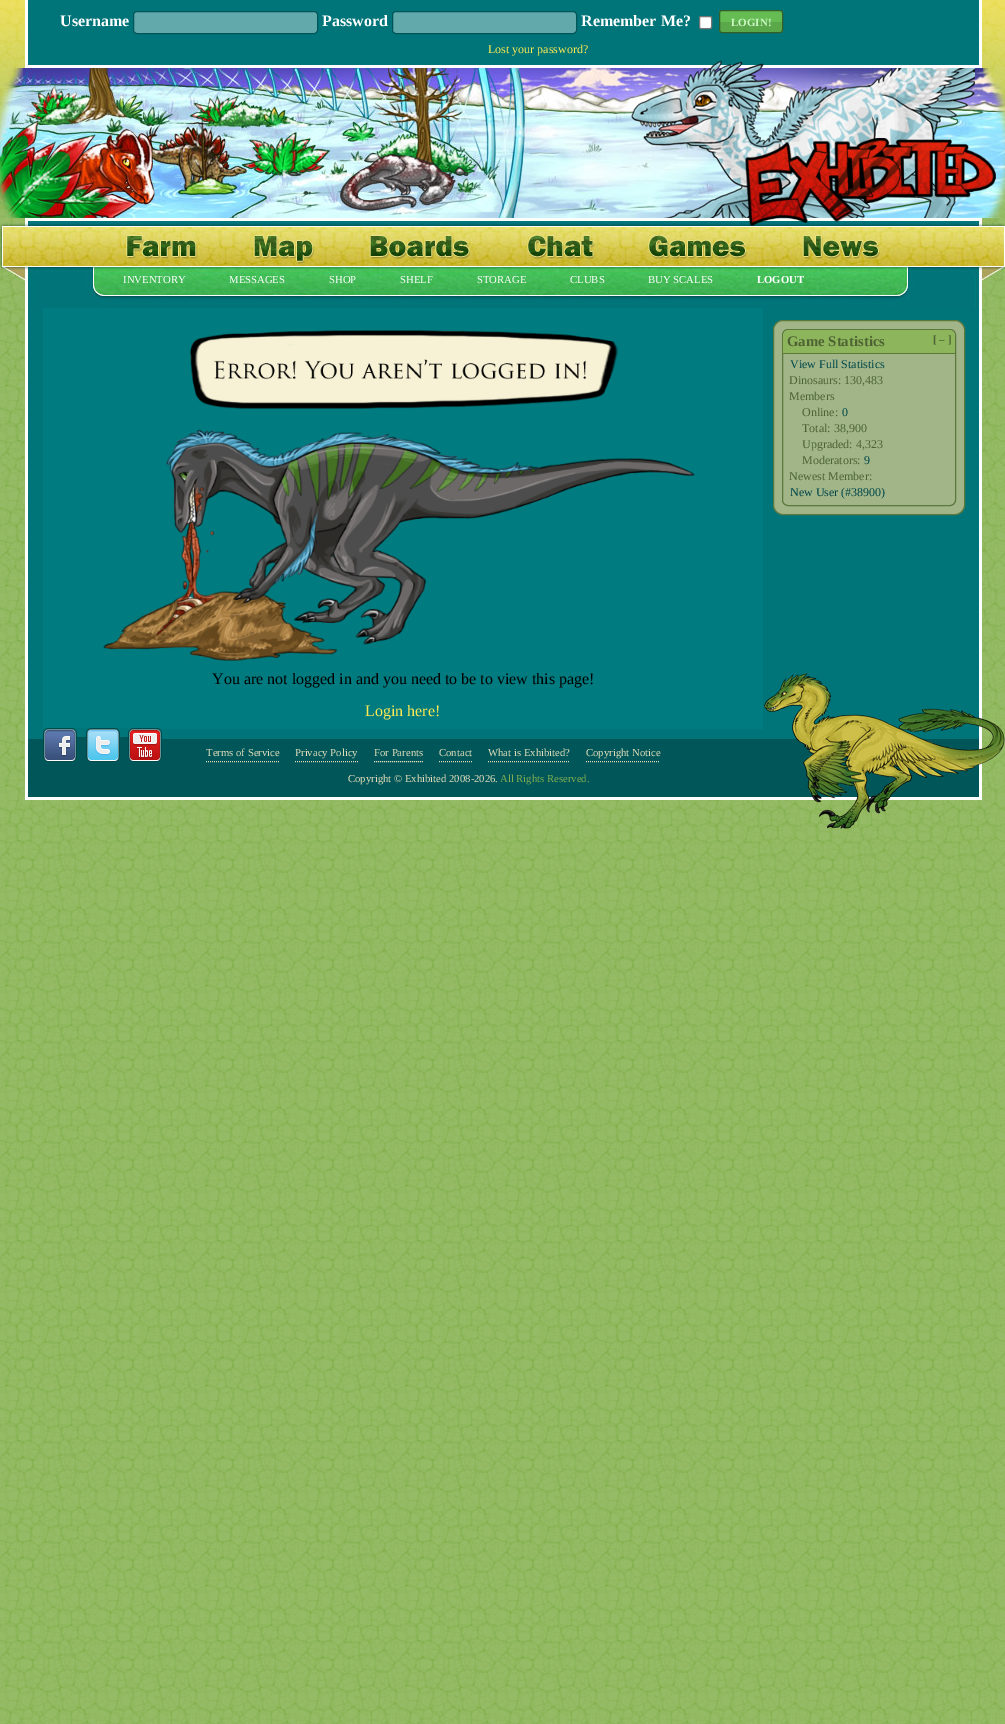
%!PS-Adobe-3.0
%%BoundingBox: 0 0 1005 1724
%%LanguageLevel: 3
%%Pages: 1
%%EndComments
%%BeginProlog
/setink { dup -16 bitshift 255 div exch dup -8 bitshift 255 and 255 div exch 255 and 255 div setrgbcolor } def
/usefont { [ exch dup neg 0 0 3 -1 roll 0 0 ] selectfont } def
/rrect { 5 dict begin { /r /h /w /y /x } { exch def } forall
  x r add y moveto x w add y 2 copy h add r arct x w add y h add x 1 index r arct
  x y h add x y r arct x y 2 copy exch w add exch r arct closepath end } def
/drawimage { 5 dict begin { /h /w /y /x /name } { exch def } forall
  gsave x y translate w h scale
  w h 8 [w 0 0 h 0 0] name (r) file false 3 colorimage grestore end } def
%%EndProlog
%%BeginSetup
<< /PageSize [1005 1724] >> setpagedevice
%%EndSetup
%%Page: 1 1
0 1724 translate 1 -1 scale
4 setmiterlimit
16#FFFFFF setink
0 0 1005 1724 rectfill
(img1.raw) 0 307 1005 1417 drawimage
(img2.raw) 0 0 1005 68 drawimage
[
    [28 0 951 65 16#007579]
    [979 0 3 68 16#FFFFFF]
    [25 65 957 3 16#FFFFFF]
    [25 0 3 68 16#FFFFFF]
] { aload pop setink rectfill } forall
/LiberationSerif-Bold 16 usefont
60 26 moveto (Username) show
16#61A9AB setink
133.5 11.5 184 22 3.5 rrect gsave fill grestore
16#005558 setink
stroke
16#FFFFFF setink
322 26 moveto (Password) show
16#61A9AB setink
392.5 11.5 184 22 3.5 rrect gsave fill grestore
16#005558 setink
stroke
16#FFFFFF setink
581 26 moveto (Remember Me?) show
699.5 16.5 12 12 1.5 rrect gsave fill grestore
16#767676 setink
stroke
gsave
719 10 64 23 3 rrect clip newpath
16#64BC53 setink
719 11 64 11 rectfill
16#5AA84A setink
719 22 64 10 rectfill
grestore
16#33602A setink
719.5 10.5 63 22 2.5 rrect stroke
/LiberationSerif-Bold 11 usefont
16#CEF7C6 setink
731 26 moveto (LOGIN!) show
/LiberationSerif-Regular 12 usefont
16#FEE954 setink
488 53 moveto (Lost your password?) show
(img4.raw) 0 68 1005 150 drawimage
(img3.raw) 631 60 344 158 drawimage
(img6.raw) 0 218 1005 89 drawimage
(img5.raw) 745 138 251 88 drawimage
(img7.raw) 124 234 75 25 drawimage
(img8.raw) 252 234 63 30 drawimage
(img9.raw) 368 234 104 25 drawimage
(img10.raw) 525 233 71 26 drawimage
(img11.raw) 646 232 102 27 drawimage
(img12.raw) 801 233 80 26 drawimage
/LiberationSerif-Regular 10.7 usefont
16#FFFFFF setink
[
    [(INVENTORY) 123 283]
    [(MESSAGES) 229 283]
    [(SHOP) 329 283]
    [(SHELF) 400 283]
    [(STORAGE) 477 283]
    [(CLUBS) 570 283]
    [(BUY SCALES) 648 283]
] { aload pop moveto show } forall
/LiberationSerif-Bold 10.7 usefont
757 283 moveto (LOGOUT) show
16#007579 setink
28 307 951 432 rectfill
16#A1B589 setink
773.5 320.5 191 194 9.5 rrect gsave fill grestore
16#5D783D setink
stroke
782.5 329.5 173 176 5.5 rrect stroke
16#8DB55C setink
789 330 moveto 949 330 lineto 952.5 330 955 332.5 955 336 curveto 955 354 lineto 783 354 lineto 783 336 lineto 783 332.5 785.5 330 789 330 curveto closepath fill
16#5D783D setink
783 353 172 1 rectfill
/LiberationSerif-Bold 14.75 usefont
16#4E6333 setink
787 346 moveto (Game Statistics) show
/LiberationSerif-Bold 11 usefont
933 343 moveto ([ – ]) show
/LiberationSerif-Regular 12 usefont
16#004648 setink
790 368 moveto (View Full Statistics) show
16#4E6333 setink
[
    [(Dinosaurs: 130,483) 789 384]
    [(Members) 789 400]
    [(Online:) 802 416]
] { aload pop moveto show } forall
16#004648 setink
842 416 moveto (0) show
16#4E6333 setink
[
    [(Total: 38,900) 802 432]
    [(Upgraded: 4,323) 802 448]
    [(Moderators:) 802 464]
] { aload pop moveto show } forall
16#004648 setink
864 464 moveto (9) show
16#4E6333 setink
789 480 moveto (Newest Member:) show
16#004648 setink
790 496 moveto (New User \(#38900\)) show
[
    [979 307 3 493 16#FFFFFF]
    [25 307 3 432 16#FFFFFF]
    [43 308 720 421 16#007B7F]
] { aload pop setink rectfill } forall
(img13.raw) 103 330 592 331 drawimage
/LiberationSerif-Regular 16 usefont
16#000000 setink
212 684 moveto (You are not logged in and you need to be to view this page!) show
16#FEE954 setink
365 716 moveto (Login here!) show
[
    [28 739 951 58 16#015659]
    [25 797 957 3 16#FFFFFF]
    [25 739 3 61 16#FFFFFF]
] { aload pop setink rectfill } forall
(img14.raw) 43 728 119 34 drawimage
/LiberationSerif-Regular 10.7 usefont
16#E1DDBA setink
206 756 moveto (Terms of Service) show
[1 1] 0 setdash
206 761.5 moveto 279 761.5 lineto stroke
295 756 moveto (Privacy Policy) show
295 761.5 moveto 358 761.5 lineto stroke
374 756 moveto (For Parents) show
374 761.5 moveto 423 761.5 lineto stroke
439 756 moveto (Contact) show
439 761.5 moveto 472 761.5 lineto stroke
488 756 moveto (What is Exhibited?) show
488 761.5 moveto 570 761.5 lineto stroke
586 756 moveto (Copyright Notice) show
586 761.5 moveto 660 761.5 lineto stroke
(img15.raw) 764 673 241 156 drawimage
348 782 moveto (Copyright © Exhibited 2008-2026.) show
16#80AD50 setink
500 782 moveto (All Rights Reserved.) show
showpage
%%EOF
